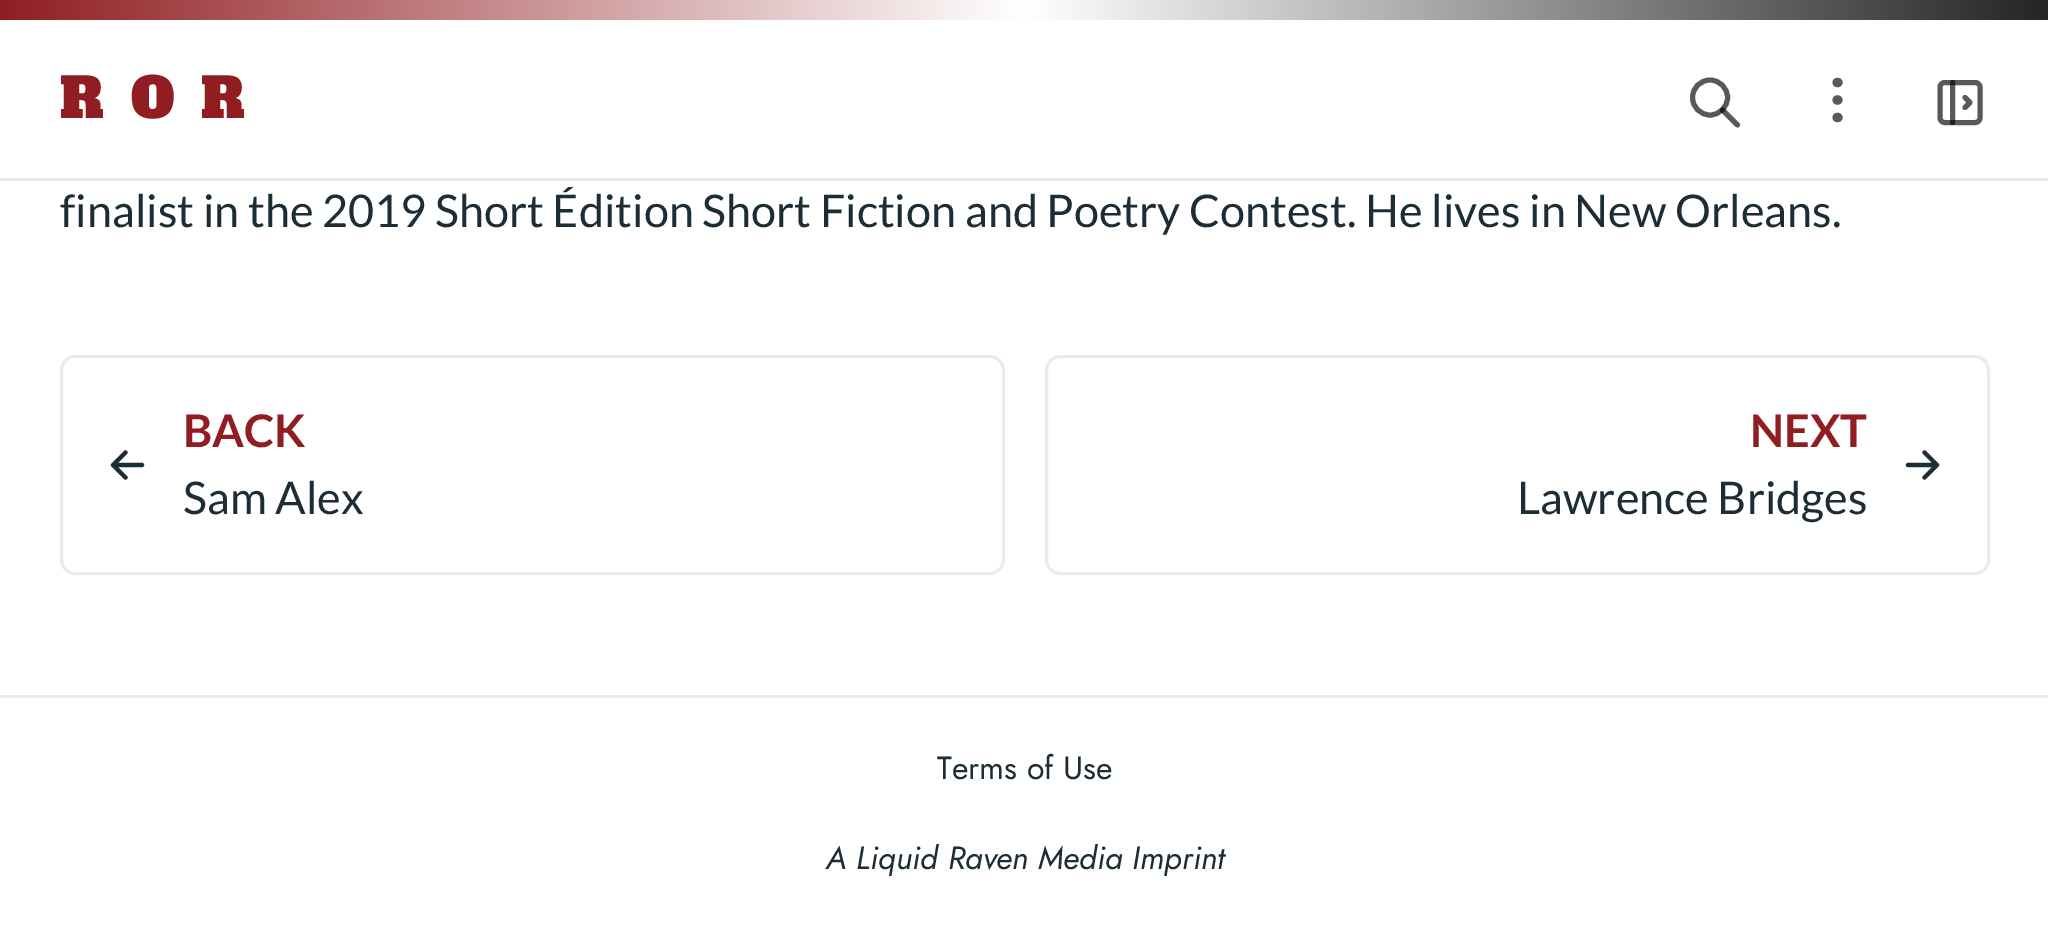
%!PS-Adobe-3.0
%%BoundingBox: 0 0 2048 927
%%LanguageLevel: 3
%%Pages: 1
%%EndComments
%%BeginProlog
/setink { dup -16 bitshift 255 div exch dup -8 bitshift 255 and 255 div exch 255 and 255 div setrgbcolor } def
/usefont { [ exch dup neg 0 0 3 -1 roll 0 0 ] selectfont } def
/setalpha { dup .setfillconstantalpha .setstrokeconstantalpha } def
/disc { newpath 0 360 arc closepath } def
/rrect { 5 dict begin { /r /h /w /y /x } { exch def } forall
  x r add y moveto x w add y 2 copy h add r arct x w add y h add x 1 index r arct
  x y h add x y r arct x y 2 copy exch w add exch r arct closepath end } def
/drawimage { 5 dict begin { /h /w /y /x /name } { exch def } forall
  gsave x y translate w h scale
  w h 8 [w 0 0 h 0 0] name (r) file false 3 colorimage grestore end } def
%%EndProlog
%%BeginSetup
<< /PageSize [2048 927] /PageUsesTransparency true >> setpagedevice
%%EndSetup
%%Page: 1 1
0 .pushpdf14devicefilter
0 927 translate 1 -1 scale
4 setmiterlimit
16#FFFFFF setink
0 0 2048 927 rectfill
(img1.raw) 0 0 2048 20 drawimage
16#E9ECEF setink
0 178 2048 3 rectfill
/AlfaSlabOne-Regular 55 usefont
16#8F1D21 setink
60 118 moveto 5 0 (R O R) ashow
16#595959 setink
5 setlinewidth
1710 97.5 17.5 disc stroke
0.65 setalpha
16#000000 setink
1 setlinecap
1 setlinejoin
1737.5 125 moveto 1722.5 110 lineto stroke
1 setalpha
16#595959 setink
1835 100 moveto 1835 103 1840 103 1840 100 curveto 1840 97 1835 97 1835 100 curveto 1835 117.5 moveto 1835 120.5 1840 120.5 1840 117.5 curveto 1840 114.5 1835 114.5 1835 117.5 curveto 1835 82.5 moveto 1835 85.5 1840 85.5 1840 82.5 curveto 1840 79.5 1835 79.5 1835 82.5 curveto stroke
1940 87.5 moveto 1940 84.5 1942 82.5 1945 82.5 curveto 1975 82.5 lineto 1978 82.5 1980 84.5 1980 87.5 curveto 1980 117.5 lineto 1980 120.5 1978 122.5 1975 122.5 curveto 1945 122.5 lineto 1942 122.5 1940 120.5 1940 117.5 curveto closepath stroke
0.65 setalpha
16#000000 setink
1952.5 82.5 moveto 1952.5 122.5 lineto stroke
1 setalpha
16#595959 setink
1965 97.5 moveto 1970 102.5 lineto 1965 107.5 lineto stroke
/Lato-Regular 45 usefont
16#1D2D35 setink
60 227 moveto (finalist in the 2019 Short Édition Short Fiction and Poetry Contest. He lives in New Orleans.) show
16#E9ECEF setink
3 setlinewidth
0 setlinecap
0 setlinejoin
61.5 356.5 942 217 13.5 rrect stroke
16#1D2D35 setink
4.2 setlinewidth
1 setlinecap
1 setlinejoin
113 465 moveto 142 465 lineto 113 465 moveto 125.5 477.5 lineto 113 465 moveto 125.5 452.5 lineto stroke
/Lato-Bold 45 usefont
16#8F1D21 setink
183 447 moveto (BACK) show
/Lato-Regular 45 usefont
16#1D2D35 setink
183 514 moveto (Sam Alex) show
16#E9ECEF setink
3 setlinewidth
0 setlinecap
0 setlinejoin
1046.5 356.5 942 217 13.5 rrect stroke
/Lato-Bold 45 usefont
16#8F1D21 setink
1750 447 moveto (NEXT) show
/Lato-Regular 45 usefont
16#1D2D35 setink
1517 514 moveto (Lawrence Bridges) show
4.2 setlinewidth
1 setlinecap
1 setlinejoin
1908 465 moveto 1937 465 lineto 1924.5 477.5 moveto 1937 465 lineto 1924.5 452.5 moveto 1937 465 lineto stroke
16#E9ECEF setink
0 695 2048 3 rectfill
/Jost-Regular 32 usefont
16#1D2D35 setink
937 779 moveto (Terms of Use) show
/Jost-Italic 32 usefont
826 869 moveto (A Liquid Raven Media Imprint) show
.poppdf14devicefilter showpage
%%EOF
